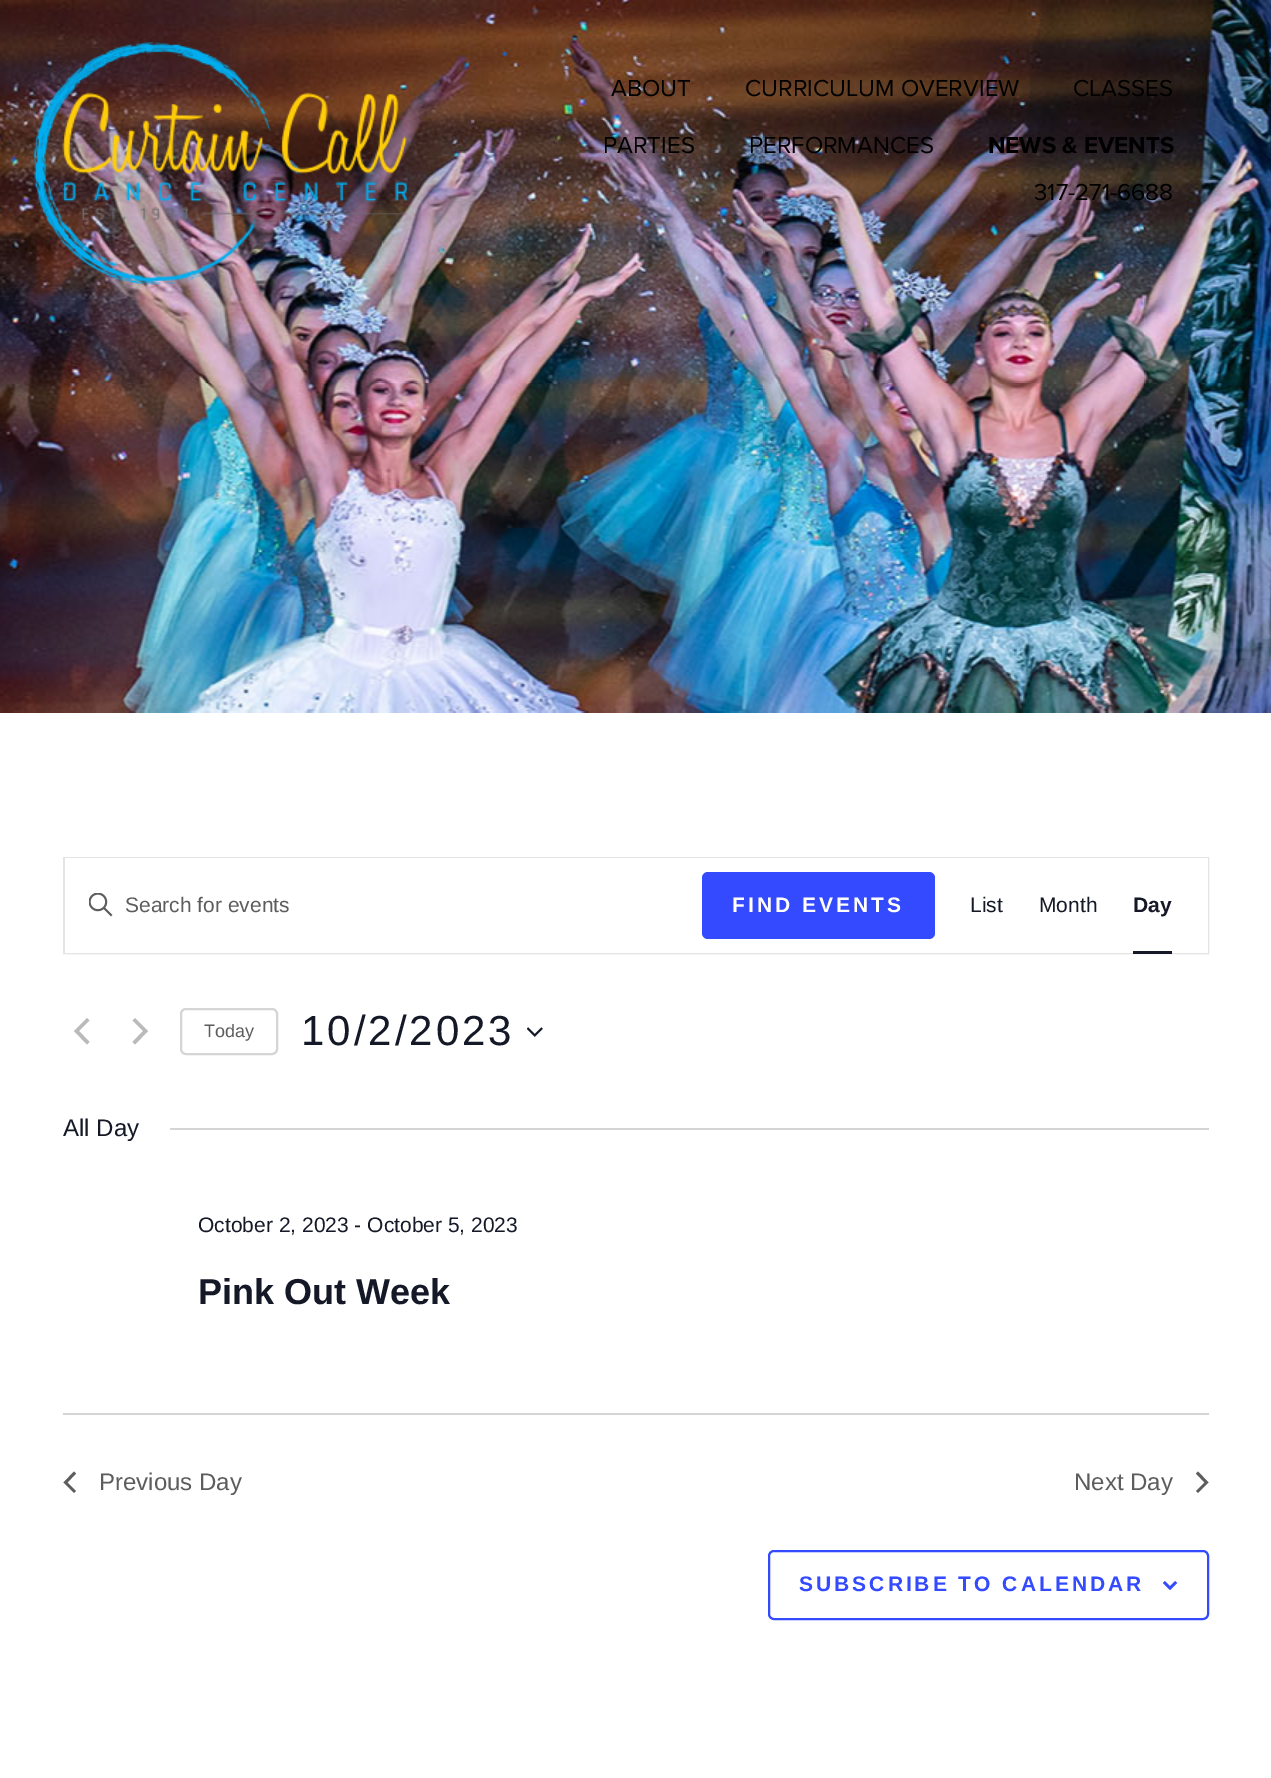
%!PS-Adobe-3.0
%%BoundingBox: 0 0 1271 1778
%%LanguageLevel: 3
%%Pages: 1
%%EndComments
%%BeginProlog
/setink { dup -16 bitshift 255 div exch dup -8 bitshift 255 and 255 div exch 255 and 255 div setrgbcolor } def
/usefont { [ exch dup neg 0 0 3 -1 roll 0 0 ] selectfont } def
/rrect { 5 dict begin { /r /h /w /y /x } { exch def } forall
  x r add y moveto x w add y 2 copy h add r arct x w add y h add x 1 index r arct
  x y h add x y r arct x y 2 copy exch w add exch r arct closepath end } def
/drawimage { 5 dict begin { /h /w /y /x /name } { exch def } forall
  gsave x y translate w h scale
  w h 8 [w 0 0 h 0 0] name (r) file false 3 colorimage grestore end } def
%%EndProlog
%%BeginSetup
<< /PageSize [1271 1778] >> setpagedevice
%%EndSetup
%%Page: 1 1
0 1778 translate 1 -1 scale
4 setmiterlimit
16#FFFFFF setink
0 0 1271 1778 rectfill
(img1.raw) 0 0 1271 713 drawimage
(img2.raw) 33 42 375 243 drawimage
/ProximaNova-Regular 24 usefont
16#000000 setink
[
    [(ABOUT) 611 96]
    [(CURRICULUM OVERVIEW) 745 96]
    [(CLASSES) 1073 96]
    [(PARTIES) 603 153]
    [(PERFORMANCES) 749 153]
] { aload pop moveto show } forall
/ProximaNova-Bold 24 usefont
988 153 moveto (NEWS & EVENTS) show
/ProximaNova-Regular 24 usefont
1034 200 moveto (317-271-6688) show
16#E4E4E4 setink
2 setlinewidth
64 858 1144 95 rectstroke
16#FFFFFF setink
65 858 1143 95 rectfill
(img3.raw) 89 893 24 24 drawimage
/LiberationSans-Regular 21 usefont
16#5D5D5D setink
125 912 moveto (Search for events) show
16#334AFF setink
702 872 233 67 6 rrect fill
/LiberationSans-Bold 21 usefont
16#FFFFFF setink
732 912 moveto 3 0 (FIND EVENTS) ashow
/LiberationSans-Regular 21 usefont
16#141827 setink
970 912 moveto (List) show
1039 912 moveto (Month) show
/LiberationSans-Bold 21 usefont
1133 912 moveto (Day) show
1133 951 39 3 rectfill
16#BABABA setink
89.5 1042 moveto 87 1044.5 lineto 74 1031 lineto 87 1018 lineto 89.5 1020.5 lineto 79 1031 lineto closepath fill
132.5 1020.5 moveto 135 1018 lineto 148 1031 lineto 135 1044.5 lineto 132.5 1042 lineto 143 1031 lineto closepath fill
16#D5D5D5 setink
181 1009 96 45 5 rrect stroke
/LiberationSans-Regular 18 usefont
16#5D5D5D setink
204 1037 moveto (Today) show
/LiberationSans-Regular 42 usefont
16#141827 setink
301 1045 moveto 3 0 (10/2/2023) ashow
(img4.raw) 527 1027 16 10 drawimage
/LiberationSans-Regular 24 usefont
63 1136 moveto (All Day) show
16#D5D5D5 setink
170 1128 1039 2 rectfill
/LiberationSans-Regular 21 usefont
16#141827 setink
198 1232 moveto (October 2, 2023 - October 5, 2023) show
/LiberationSans-Bold 36 usefont
198 1304 moveto (Pink Out Week) show
16#D5D5D5 setink
63 1413 1146 2 rectfill
16#5D5D5D setink
76 1491 moveto 74 1493 lineto 63.5 1482.5 lineto 74 1471.5 lineto 76 1473.5 lineto 67.5 1482.5 lineto closepath fill
/LiberationSans-Regular 24 usefont
99 1490 moveto (Previous Day) show
1074 1490 moveto (Next Day) show
1196 1473.5 moveto 1198 1471.5 lineto 1208.5 1482.5 lineto 1198 1493 lineto 1196 1491 lineto 1204.5 1482.5 lineto closepath fill
16#334AFF setink
769 1551 439 68 5 rrect stroke
/LiberationSans-Bold 21 usefont
799 1591 moveto 3 0 (SUBSCRIBE TO CALENDAR) ashow
(img5.raw) 1163 1581 15 9 drawimage
showpage
%%EOF
